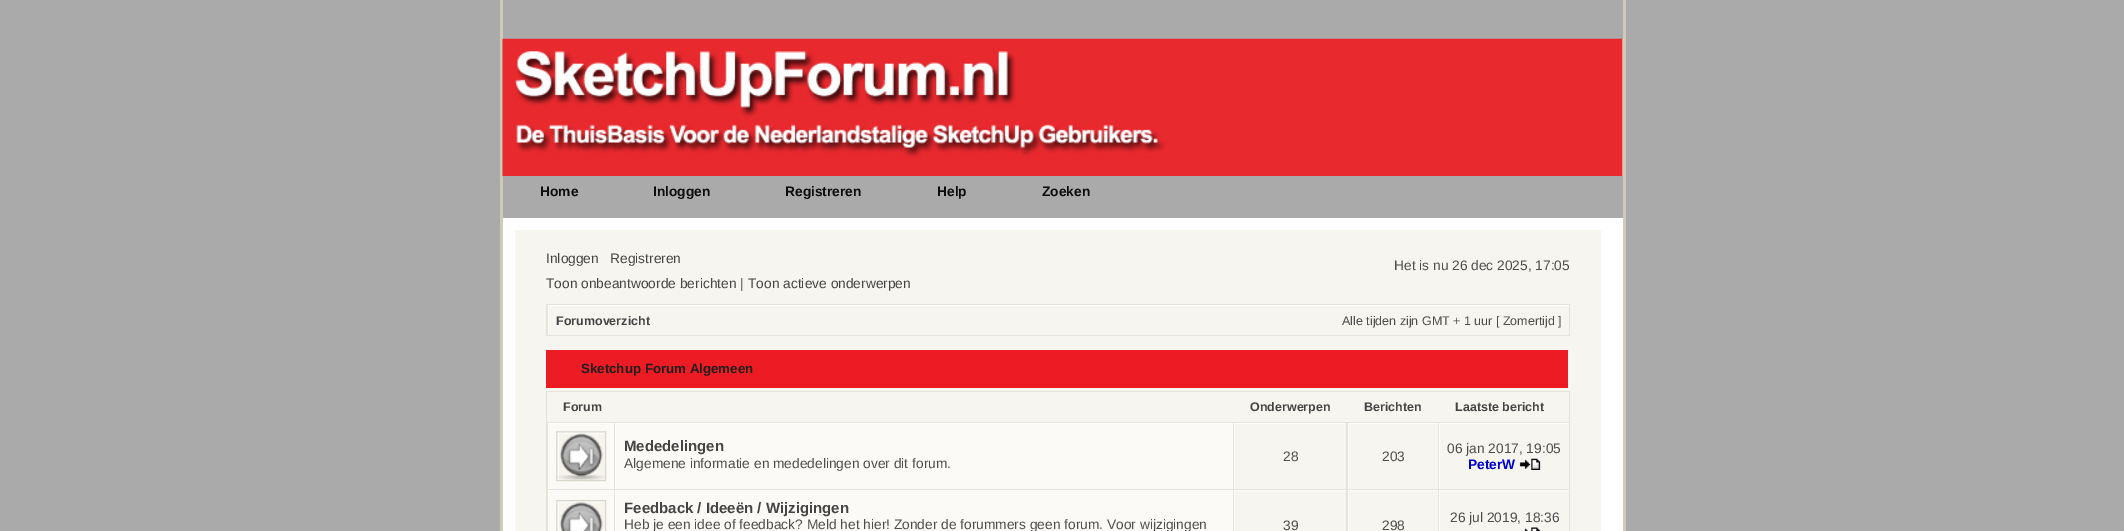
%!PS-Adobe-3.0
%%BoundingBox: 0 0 2124 531
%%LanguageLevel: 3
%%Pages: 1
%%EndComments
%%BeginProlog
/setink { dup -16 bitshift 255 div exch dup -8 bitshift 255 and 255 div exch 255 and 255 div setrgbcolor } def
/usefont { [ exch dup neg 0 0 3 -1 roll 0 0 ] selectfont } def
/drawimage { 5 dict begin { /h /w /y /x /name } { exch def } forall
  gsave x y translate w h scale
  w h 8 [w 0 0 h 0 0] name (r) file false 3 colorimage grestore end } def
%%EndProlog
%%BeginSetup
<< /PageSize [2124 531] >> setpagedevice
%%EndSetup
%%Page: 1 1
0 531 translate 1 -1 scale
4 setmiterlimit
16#AAAAAA setink
0 0 2124 531 rectfill
[
    [503 39 1120 492 16#FFFFFF]
    [1623 0 3 531 16#CECBBB]
    [500 0 3 531 16#CECBBB]
] { aload pop setink rectfill } forall
(img1.raw) 502 38 1121 139 drawimage
16#AAAAAA setink
503 176 1120 42 rectfill
/LiberationSans-Bold 13.75 usefont
16#0D0D0D setink
[
    [(Home) 540 196]
    [(Inloggen) 653 196]
    [(Registreren) 785 196]
    [(Help) 937 196]
    [(Zoeken) 1042 196]
] { aload pop moveto show } forall
16#F6F5F0 setink
515 230 1086 301 rectfill
/LiberationSans-Regular 13.75 usefont
16#444444 setink
546 263 moveto (Inloggen) show
610 263 moveto (Registreren) show
16#4D4D4D setink
1394 270 moveto (Het is nu 26 dec 2025, 17:05) show
16#444444 setink
546 288 moveto (Toon onbeantwoorde berichten) show
16#4D4D4D setink
740 288 moveto (|) show
16#444444 setink
748 288 moveto (Toon actieve onderwerpen) show
[
    [546 304 1024 32 16#E5E4DB]
    [549 306 1020 29 16#F6F5F0]
    [548 305 1021 1 16#FFFFFF]
    [548 305 1 30 16#FFFFFF]
] { aload pop setink rectfill } forall
/LiberationSans-Bold 12.5 usefont
16#444444 setink
556 325 moveto (Forumoverzicht) show
/LiberationSans-Regular 12.5 usefont
16#4D4D4D setink
1342 325 moveto (Alle tijden zijn GMT + 1 uur [ Zomertijd ]) show
16#ED1B24 setink
546 350 1022 38 rectfill
/LiberationSans-Bold 13.3 usefont
16#1F1F1F setink
581 373 moveto (Sketchup Forum Algemeen) show
16#E5E4DB setink
546 391 1024 140 rectfill
16#F6F5F0 setink
547 392 1022 30 rectfill
/LiberationSans-Bold 12.5 usefont
16#444444 setink
[
    [(Forum) 563 411]
    [(Onderwerpen) 1250 411]
    [(Berichten) 1364 411]
    [(Laatste bericht) 1455 411]
] { aload pop moveto show } forall
[
    [549 424 65 65 16#FBFAF6]
    [548 423 66 1 16#FFFFFF]
    [548 423 1 66 16#FFFFFF]
] { aload pop setink rectfill } forall
(img2.raw) 556 431 51 51 drawimage
[
    [616 424 617 65 16#FBFAF6]
    [615 423 618 1 16#FFFFFF]
    [615 423 1 66 16#FFFFFF]
] { aload pop setink rectfill } forall
/LiberationSans-Bold 15 usefont
16#444444 setink
624 451 moveto (Mededelingen) show
/LiberationSans-Regular 13.75 usefont
16#4D4D4D setink
624 468 moveto (Algemene informatie en mededelingen over dit forum.) show
[
    [1235 424 111 65 16#F6F5F0]
    [1234 423 112 1 16#FFFFFF]
    [1234 423 1 66 16#FFFFFF]
] { aload pop setink rectfill } forall
16#4D4D4D setink
1283 461 moveto (28) show
[
    [1349 424 89 65 16#F6F5F0]
    [1348 423 90 1 16#FFFFFF]
    [1348 423 1 66 16#FFFFFF]
] { aload pop setink rectfill } forall
16#4D4D4D setink
1382 461 moveto (203) show
[
    [1440 424 129 65 16#F6F5F0]
    [1439 423 130 1 16#FFFFFF]
    [1439 423 1 66 16#FFFFFF]
] { aload pop setink rectfill } forall
16#4D4D4D setink
1447 453 moveto (06 jan 2017, 19:05) show
/LiberationSans-Bold 13.75 usefont
16#0000CC setink
1468 469 moveto (PeterW) show
(img3.raw) 1519 458 22 12 drawimage
[
    [549 491 65 40 16#FBFAF6]
    [548 490 66 1 16#FFFFFF]
    [548 490 1 41 16#FFFFFF]
] { aload pop setink rectfill } forall
(img4.raw) 556 500 51 31 drawimage
[
    [616 491 617 40 16#FBFAF6]
    [615 490 618 1 16#FFFFFF]
    [615 490 1 41 16#FFFFFF]
] { aload pop setink rectfill } forall
/LiberationSans-Bold 15 usefont
16#444444 setink
624 513 moveto (Feedback / Ideeën / Wijzigingen) show
/LiberationSans-Regular 13.75 usefont
16#4D4D4D setink
624 529 moveto (Heb je een idee of feedback? Meld het hier! Zonder de forummers geen forum. Voor wijzigingen) show
[
    [1235 491 111 40 16#F6F5F0]
    [1234 490 112 1 16#FFFFFF]
    [1234 490 1 41 16#FFFFFF]
] { aload pop setink rectfill } forall
16#4D4D4D setink
1283 530 moveto (39) show
[
    [1349 491 89 40 16#F6F5F0]
    [1348 490 90 1 16#FFFFFF]
    [1348 490 1 41 16#FFFFFF]
] { aload pop setink rectfill } forall
16#4D4D4D setink
1382 530 moveto (298) show
[
    [1440 491 129 40 16#F6F5F0]
    [1439 490 130 1 16#FFFFFF]
    [1439 490 1 41 16#FFFFFF]
] { aload pop setink rectfill } forall
16#4D4D4D setink
1450 522 moveto (26 jul 2019, 18:36) show
(img5.raw) 1524 527 17 4 drawimage
showpage
%%EOF
